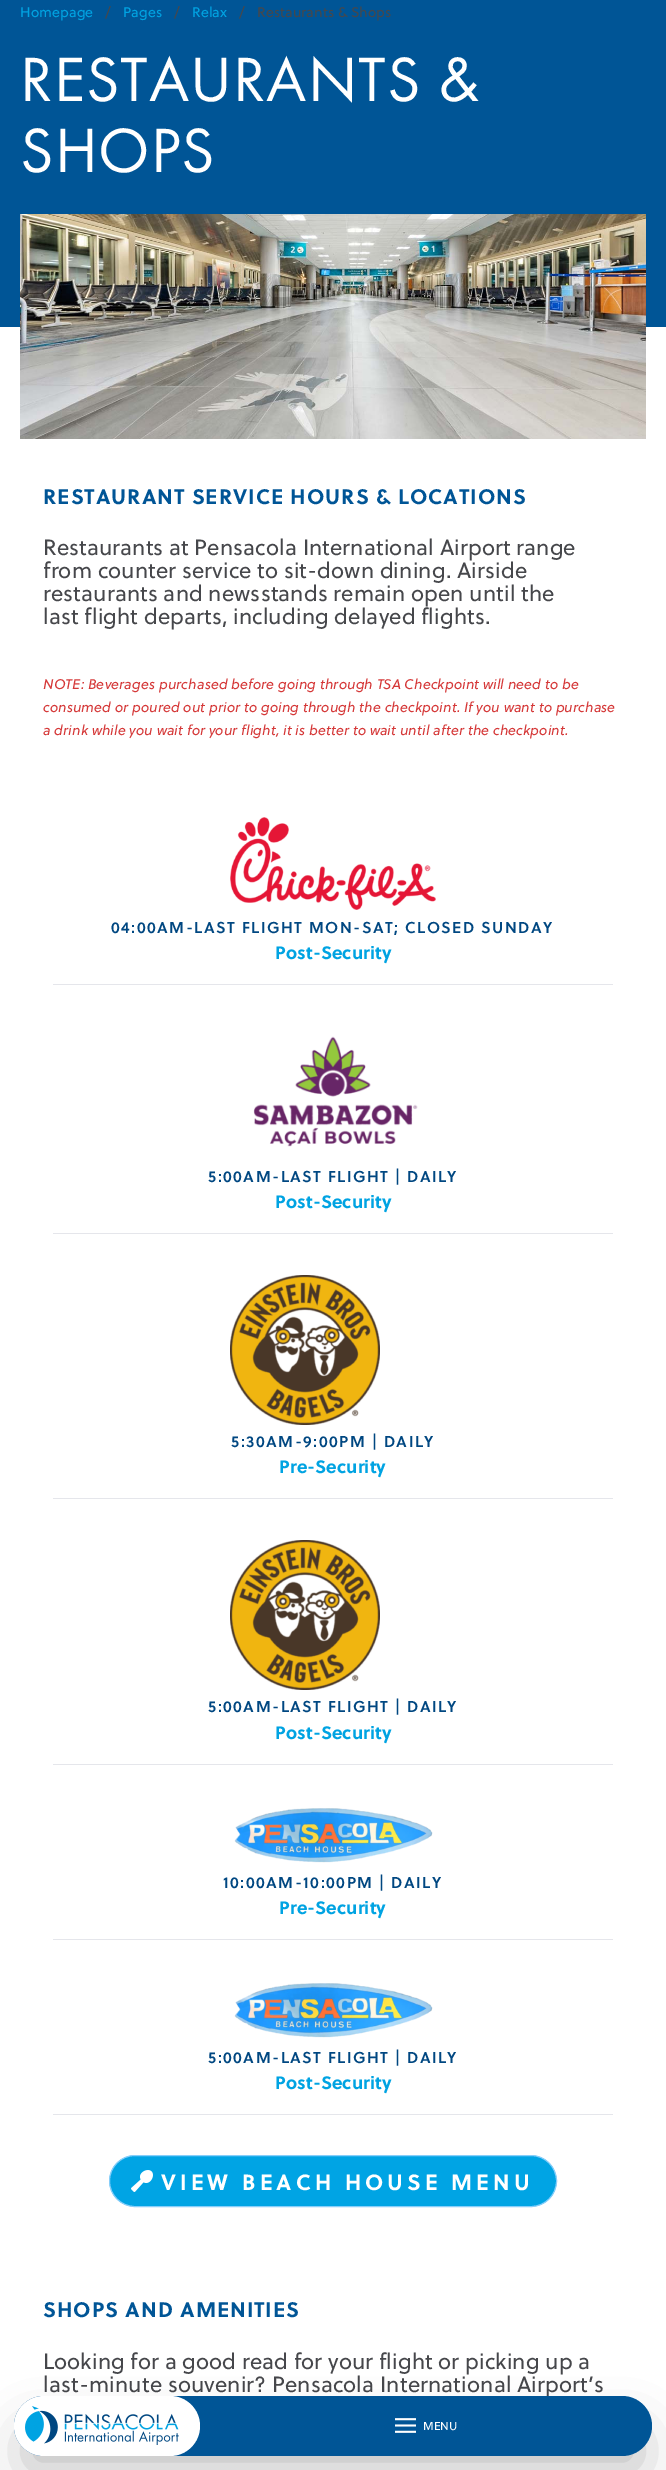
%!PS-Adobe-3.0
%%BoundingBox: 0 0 666 2470
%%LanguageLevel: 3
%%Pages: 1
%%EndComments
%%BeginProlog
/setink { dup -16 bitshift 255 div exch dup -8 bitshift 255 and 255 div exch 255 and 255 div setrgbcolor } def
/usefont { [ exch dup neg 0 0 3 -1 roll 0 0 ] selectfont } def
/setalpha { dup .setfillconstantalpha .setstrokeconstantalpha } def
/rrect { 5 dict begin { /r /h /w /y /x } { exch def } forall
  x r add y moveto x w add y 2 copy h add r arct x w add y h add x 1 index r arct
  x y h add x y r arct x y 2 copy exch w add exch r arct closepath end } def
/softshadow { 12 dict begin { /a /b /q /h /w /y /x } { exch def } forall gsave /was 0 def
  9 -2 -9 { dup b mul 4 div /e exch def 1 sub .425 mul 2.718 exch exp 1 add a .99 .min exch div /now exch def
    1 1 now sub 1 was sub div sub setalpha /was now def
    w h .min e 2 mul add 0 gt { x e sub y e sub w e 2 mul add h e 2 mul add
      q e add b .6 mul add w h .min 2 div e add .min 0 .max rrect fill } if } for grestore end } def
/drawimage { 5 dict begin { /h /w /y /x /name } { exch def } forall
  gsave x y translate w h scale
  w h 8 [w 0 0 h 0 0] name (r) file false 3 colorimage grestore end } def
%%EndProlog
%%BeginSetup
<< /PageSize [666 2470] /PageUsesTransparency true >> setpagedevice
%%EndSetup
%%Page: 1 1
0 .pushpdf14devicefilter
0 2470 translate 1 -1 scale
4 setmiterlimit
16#FFFFFF setink
0 0 666 2470 rectfill
16#005596 setink
0 0 666 327 rectfill
/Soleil-Regular 14 usefont
16#00A3E2 setink
20 17 moveto 0.1 0 (Homepage) ashow
/Soleil-Regular 16 usefont
16#46474B setink
105 18 moveto 0.1 0 (/) ashow
/Soleil-Regular 14 usefont
16#00A3E2 setink
123 17 moveto 0.1 0 (Pages) ashow
/Soleil-Regular 16 usefont
16#46474B setink
174 18 moveto 0.1 0 (/) ashow
/Soleil-Regular 14 usefont
16#00A3E2 setink
192 17 moveto 0.1 0 (Relax) ashow
/Soleil-Regular 16 usefont
16#46474B setink
239 18 moveto 0.1 0 (/) ashow
/Soleil-Regular 14 usefont
257 17 moveto 0.1 0 (Restaurants & Shops) ashow
/FuturaPT-Regular 64.75 usefont
16#FFFFFF setink
20 101 moveto 1 0 (RESTAURANTS &) ashow
20 172 moveto 1 0 (SHOPS) ashow
(img1.raw) 20 214 626 225 drawimage
/Soleil-Bold 21 usefont
16#005596 setink
43 504 moveto 1.05 0 (RESTAURANT SERVICE HOURS & LOCATIONS) ashow
/Soleil-Regular 22 usefont
16#46474B setink
43 555 moveto 0.1 0 (Restaurants at Pensacola International Airport range) ashow
43 578 moveto 0.1 0 (from counter service to sit-down dining. Airside) ashow
43 601 moveto 0.1 0 (restaurants and newsstands remain open until the) ashow
43 624 moveto 0.1 0 (last flight departs, including delayed flights.) ashow
/Soleil-Italic 14 usefont
16#D53939 setink
43 689 moveto 0.1 0 (NOTE: Beverages purchased before going through TSA Checkpoint will need to be) ashow
43 712 moveto 0.1 0 (consumed or poured out prior to going through the checkpoint. If you want to purchase) ashow
43 735 moveto 0.1 0 (a drink while you wait for your flight, it is better to wait until after the checkpoint.) ashow
16#E5E6EB setink
53 984 560 1 rectfill
(img2.raw) 230 817 206 93 drawimage
/Soleil-SemiBold 15.75 usefont
16#004781 setink
111 933 moveto 1.5 0 (04:00AM-LAST FLIGHT MON-SAT; CLOSED SUNDAY) ashow
/Soleil-Bold 18 usefont
16#00A3E2 setink
275 959 moveto 0.1 0 (Post-Security) ashow
16#E5E6EB setink
53 1233 560 1 rectfill
(img3.raw) 253 1036 165 111 drawimage
/Soleil-SemiBold 15.75 usefont
16#004781 setink
208 1182 moveto 1.5 0 (5:00AM-LAST FLIGHT | DAILY) ashow
/Soleil-Bold 18 usefont
16#00A3E2 setink
275 1208 moveto 0.1 0 (Post-Security) ashow
16#E5E6EB setink
53 1498 560 1 rectfill
(img4.raw) 230 1275 150 150 drawimage
/Soleil-SemiBold 15.75 usefont
16#004781 setink
231 1447 moveto 1.5 0 (5:30AM-9:00PM | DAILY) ashow
/Soleil-Bold 18 usefont
16#00A3E2 setink
279 1473 moveto 0.1 0 (Pre-Security) ashow
16#E5E6EB setink
53 1764 560 1 rectfill
(img4.raw) 230 1540 150 150 drawimage
/Soleil-SemiBold 15.75 usefont
16#004781 setink
208 1712 moveto 1.5 0 (5:00AM-LAST FLIGHT | DAILY) ashow
/Soleil-Bold 18 usefont
16#00A3E2 setink
275 1739 moveto 0.1 0 (Post-Security) ashow
16#E5E6EB setink
53 1939 560 1 rectfill
(img5.raw) 234 1808 199 55 drawimage
/Soleil-SemiBold 15.75 usefont
16#004781 setink
223 1888 moveto 1.5 0 (10:00AM-10:00PM | DAILY) ashow
/Soleil-Bold 18 usefont
16#00A3E2 setink
279 1914 moveto 0.1 0 (Pre-Security) ashow
16#E5E6EB setink
53 2114 560 1 rectfill
(img6.raw) 234 1983 199 55 drawimage
/Soleil-SemiBold 15.75 usefont
16#004781 setink
208 2063 moveto 1.5 0 (5:00AM-LAST FLIGHT | DAILY) ashow
/Soleil-Bold 18 usefont
16#00A3E2 setink
275 2089 moveto 0.1 0 (Post-Security) ashow
16#00A4E4 setink
109.5 2155.5 447 51 25.5 rrect gsave fill grestore
16#87CEFA setink
stroke
(img7.raw) 131 2170 22 22 drawimage
/Soleil-Bold 22 usefont
16#FFFFFF setink
161 2190 moveto 4.1 0 (VIEW BEACH HOUSE MENU) ashow
/Soleil-Bold 21 usefont
16#005596 setink
43 2317 moveto 1.05 0 (SHOPS AND AMENITIES) ashow
/Soleil-Regular 22 usefont
16#46474B setink
43 2369 moveto 0.1 0 (Looking for a good read for your flight or picking up a) ashow
43 2392 moveto 0.1 0 (last-minute souvenir? Pensacola International Airport’s) ashow
16#000000 setink
26 2433 614 36 18 25 0.25 softshadow
16#005596 setink
14 2396 638 60 30 rrect fill
16#FFFFFF setink
14 2396 186 60 30 rrect fill
(img8.raw) 25 2406 154 39 drawimage
(img9.raw) 395 2418 21 15 drawimage
/Soleil-Regular 11.5 usefont
423 2430 moveto 0.1 0 (MENU) ashow
.poppdf14devicefilter showpage
%%EOF
